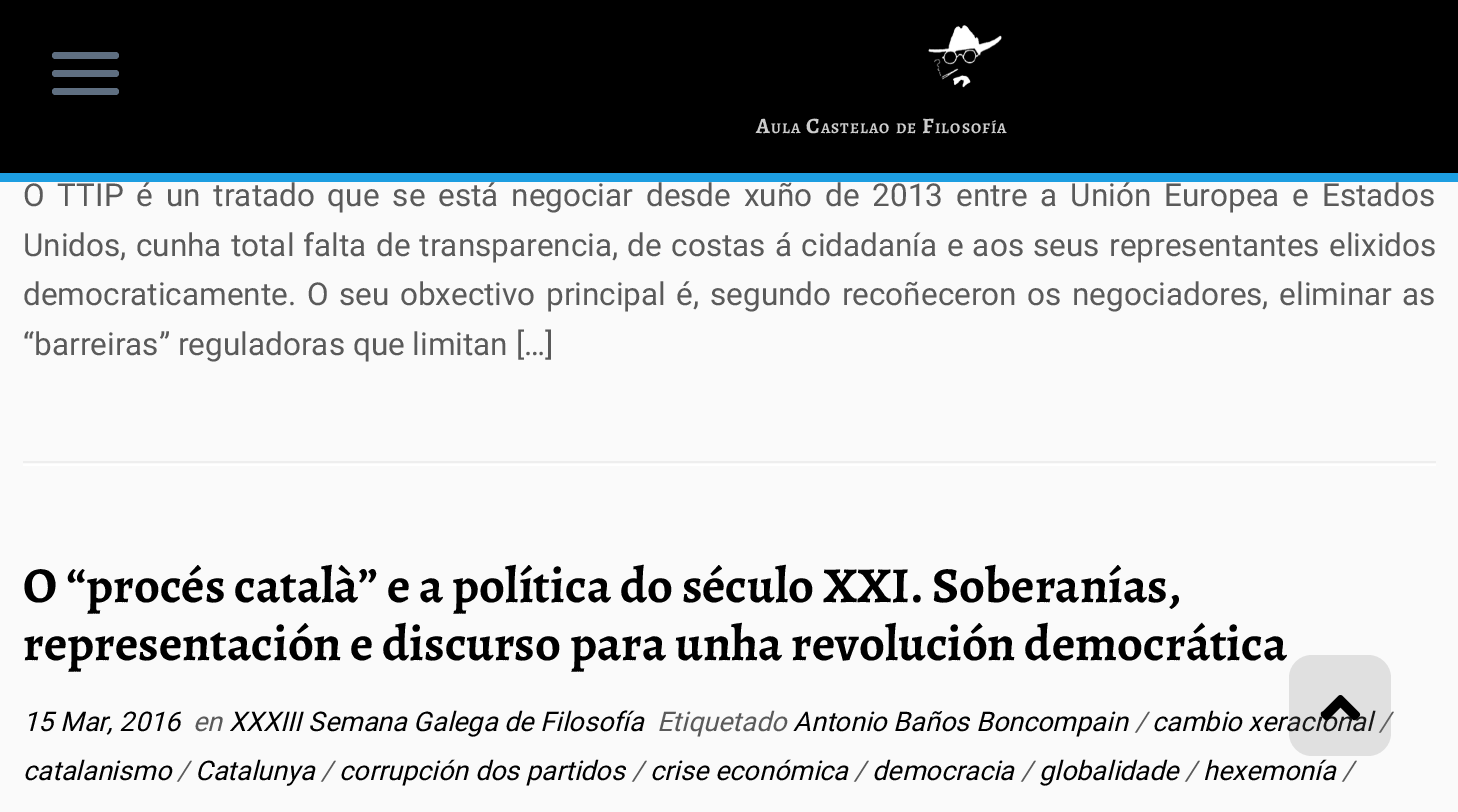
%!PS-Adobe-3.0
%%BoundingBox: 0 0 1458 812
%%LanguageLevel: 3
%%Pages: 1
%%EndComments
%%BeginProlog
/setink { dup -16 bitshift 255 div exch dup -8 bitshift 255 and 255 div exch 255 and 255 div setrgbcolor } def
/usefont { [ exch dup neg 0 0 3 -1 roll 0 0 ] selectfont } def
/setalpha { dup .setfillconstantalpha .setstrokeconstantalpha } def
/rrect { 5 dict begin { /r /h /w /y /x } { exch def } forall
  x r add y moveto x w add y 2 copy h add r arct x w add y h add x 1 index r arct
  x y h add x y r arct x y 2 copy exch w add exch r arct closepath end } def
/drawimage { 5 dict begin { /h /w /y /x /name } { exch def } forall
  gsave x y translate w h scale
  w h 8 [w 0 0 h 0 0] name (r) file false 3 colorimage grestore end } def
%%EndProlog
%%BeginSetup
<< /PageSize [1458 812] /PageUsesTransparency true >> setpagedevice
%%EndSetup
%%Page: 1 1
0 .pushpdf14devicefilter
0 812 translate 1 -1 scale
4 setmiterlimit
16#FAFAFA setink
0 0 1458 812 rectfill
16#000000 setink
0 0 1458 173 rectfill
16#1D9EE1 setink
0 173 1458 9 rectfill
16#5F6F81 setink
52 52 67 7 3.5 rrect fill
52 70 67 7 3.5 rrect fill
52 88 67 7 3.5 rrect fill
(img1.raw) 928 25 74 63 drawimage
/Alegreya-Bold 22 usefont
16#CCCCCC setink
756 133 moveto 1 0 (A) ashow
/Alegreya-Bold 15 usefont
771 133 moveto 1 0 (ULA) ashow
/Alegreya-Bold 22 usefont
806 133 moveto 1 0 (C) ashow
/Alegreya-Bold 15 usefont
821 133 moveto 1 0 (ASTELAO) ashow
896 133 moveto 1 0 (DE) ashow
/Alegreya-Bold 22 usefont
922 133 moveto 1 0 (F) ashow
/Alegreya-Bold 15 usefont
935 133 moveto 1 0 (ILOSOFÍA) ashow
/Roboto-Regular 31.5 usefont
16#5A5A5A setink
23 206 moveto 5 0 32 (O TTIP é un tratado que se está negociar desde xuño de 2013 entre a Unión Europea e Estados) widthshow
23 256 moveto 1.4 0 32 (Unidos, cunha total falta de transparencia, de costas á cidadanía e aos seus representantes elixidos) widthshow
23 305 moveto 2.75 0 32 (democraticamente. O seu obxectivo principal é, segundo recoñeceron os negociadores, eliminar as) widthshow
23 355 moveto (“barreiras” reguladoras que limitan […]) show
16#EEEEEE setink
23 461 1413 2 rectfill
16#FFFFFF setink
23 464 1413 2 rectfill
/Alegreya-Bold 50.4 usefont
16#000000 setink
23 602 moveto (O “procés català” e a política do século XXI. Soberanías,) show
23 660 moveto (representación e discurso para unha revolución democrática) show
/Roboto-Italic 27 usefont
23 731 moveto (15 Mar, 2016) show
16#5A5A5A setink
193 731 moveto (en) show
16#000000 setink
229 731 moveto (XXXIII Semana Galega de Filosofía) show
16#5A5A5A setink
657 731 moveto (Etiquetado) show
16#000000 setink
793 731 moveto (Antonio Baños Boncompain) show
16#5A5A5A setink
1135 731 moveto (/) show
16#000000 setink
1152 731 moveto (cambio xeracional) show
16#5A5A5A setink
1379 731 moveto (/) show
16#000000 setink
23 780 moveto (catalanismo) show
16#5A5A5A setink
177 780 moveto (/) show
16#000000 setink
195 780 moveto (Catalunya) show
16#5A5A5A setink
321 780 moveto (/) show
16#000000 setink
339 780 moveto (corrupción dos partidos) show
16#5A5A5A setink
632 780 moveto (/) show
16#000000 setink
650 780 moveto (crise económica) show
16#5A5A5A setink
854 780 moveto (/) show
16#000000 setink
872 780 moveto (democracia) show
16#5A5A5A setink
1021 780 moveto (/) show
16#000000 setink
1039 780 moveto (globalidade) show
16#5A5A5A setink
1185 780 moveto (/) show
16#000000 setink
1203 780 moveto (hexemonía) show
16#5A5A5A setink
1342 780 moveto (/) show
0.2 setalpha
16#777777 setink
1289 655 102 101 23 rrect fill
1 setalpha
(img2.raw) 1320 695 41 26 drawimage
.poppdf14devicefilter showpage
%%EOF
